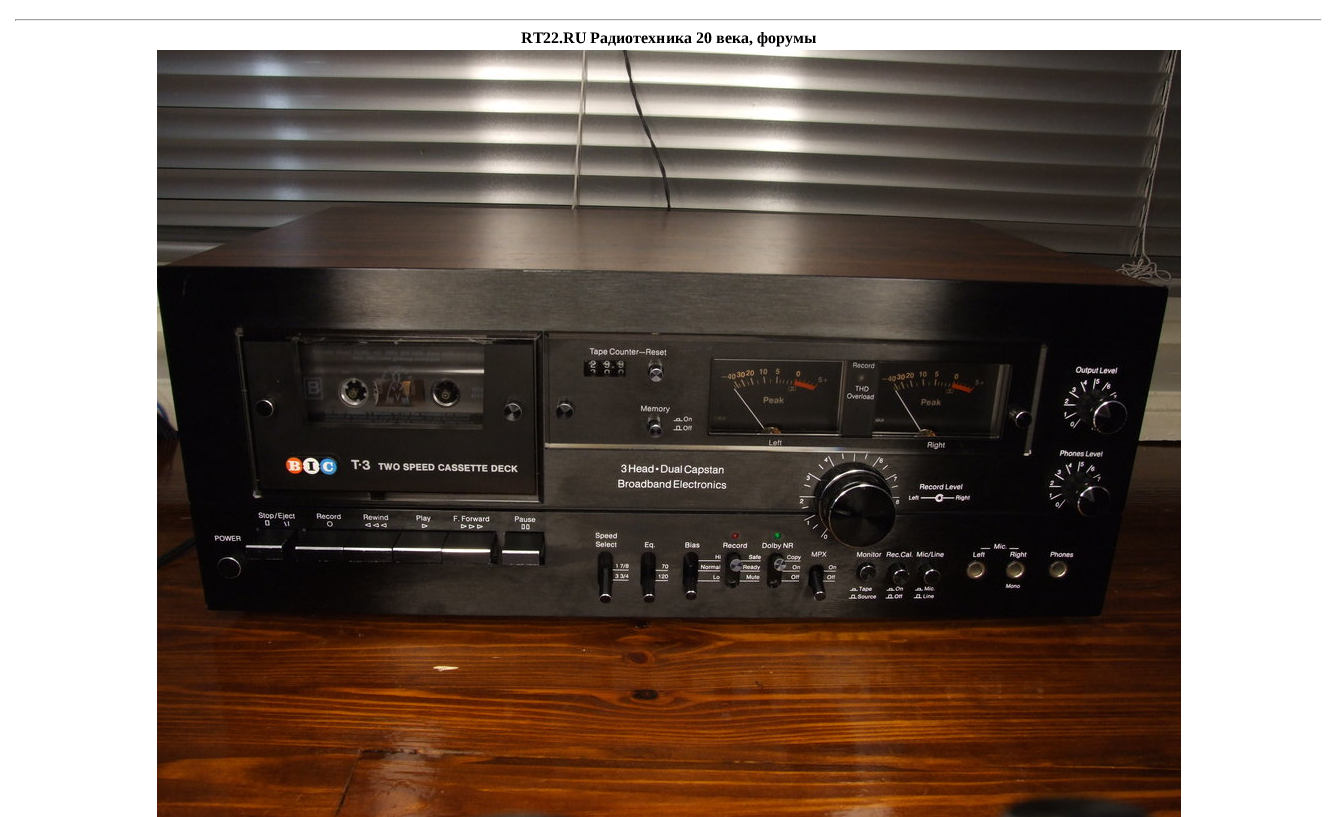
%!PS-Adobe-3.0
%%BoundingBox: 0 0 1333 817
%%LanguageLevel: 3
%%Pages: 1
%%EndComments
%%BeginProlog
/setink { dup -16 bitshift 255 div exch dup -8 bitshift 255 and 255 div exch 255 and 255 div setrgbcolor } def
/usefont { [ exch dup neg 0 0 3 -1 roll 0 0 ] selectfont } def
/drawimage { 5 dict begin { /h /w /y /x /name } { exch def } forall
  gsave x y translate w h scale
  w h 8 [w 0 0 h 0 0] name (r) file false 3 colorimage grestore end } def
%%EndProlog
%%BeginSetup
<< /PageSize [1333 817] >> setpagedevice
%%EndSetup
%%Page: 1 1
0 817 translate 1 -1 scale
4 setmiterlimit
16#FFFFFF setink
0 0 1333 817 rectfill
[
    [15 19 1307 1 16#9F9F9F]
    [1321 19 1 2 16#EEEEEE]
    [15 20 1307 1 16#EEEEEE]
    [15 19 1 2 16#9F9F9F]
] { aload pop setink rectfill } forall
/LiberationSerif-Bold 16 usefont
16#000000 setink
521 43 moveto (RT22.RU Радиотехника 20 века, форумы) show
(img1.raw) 157 50 1024 767 drawimage
showpage
%%EOF
